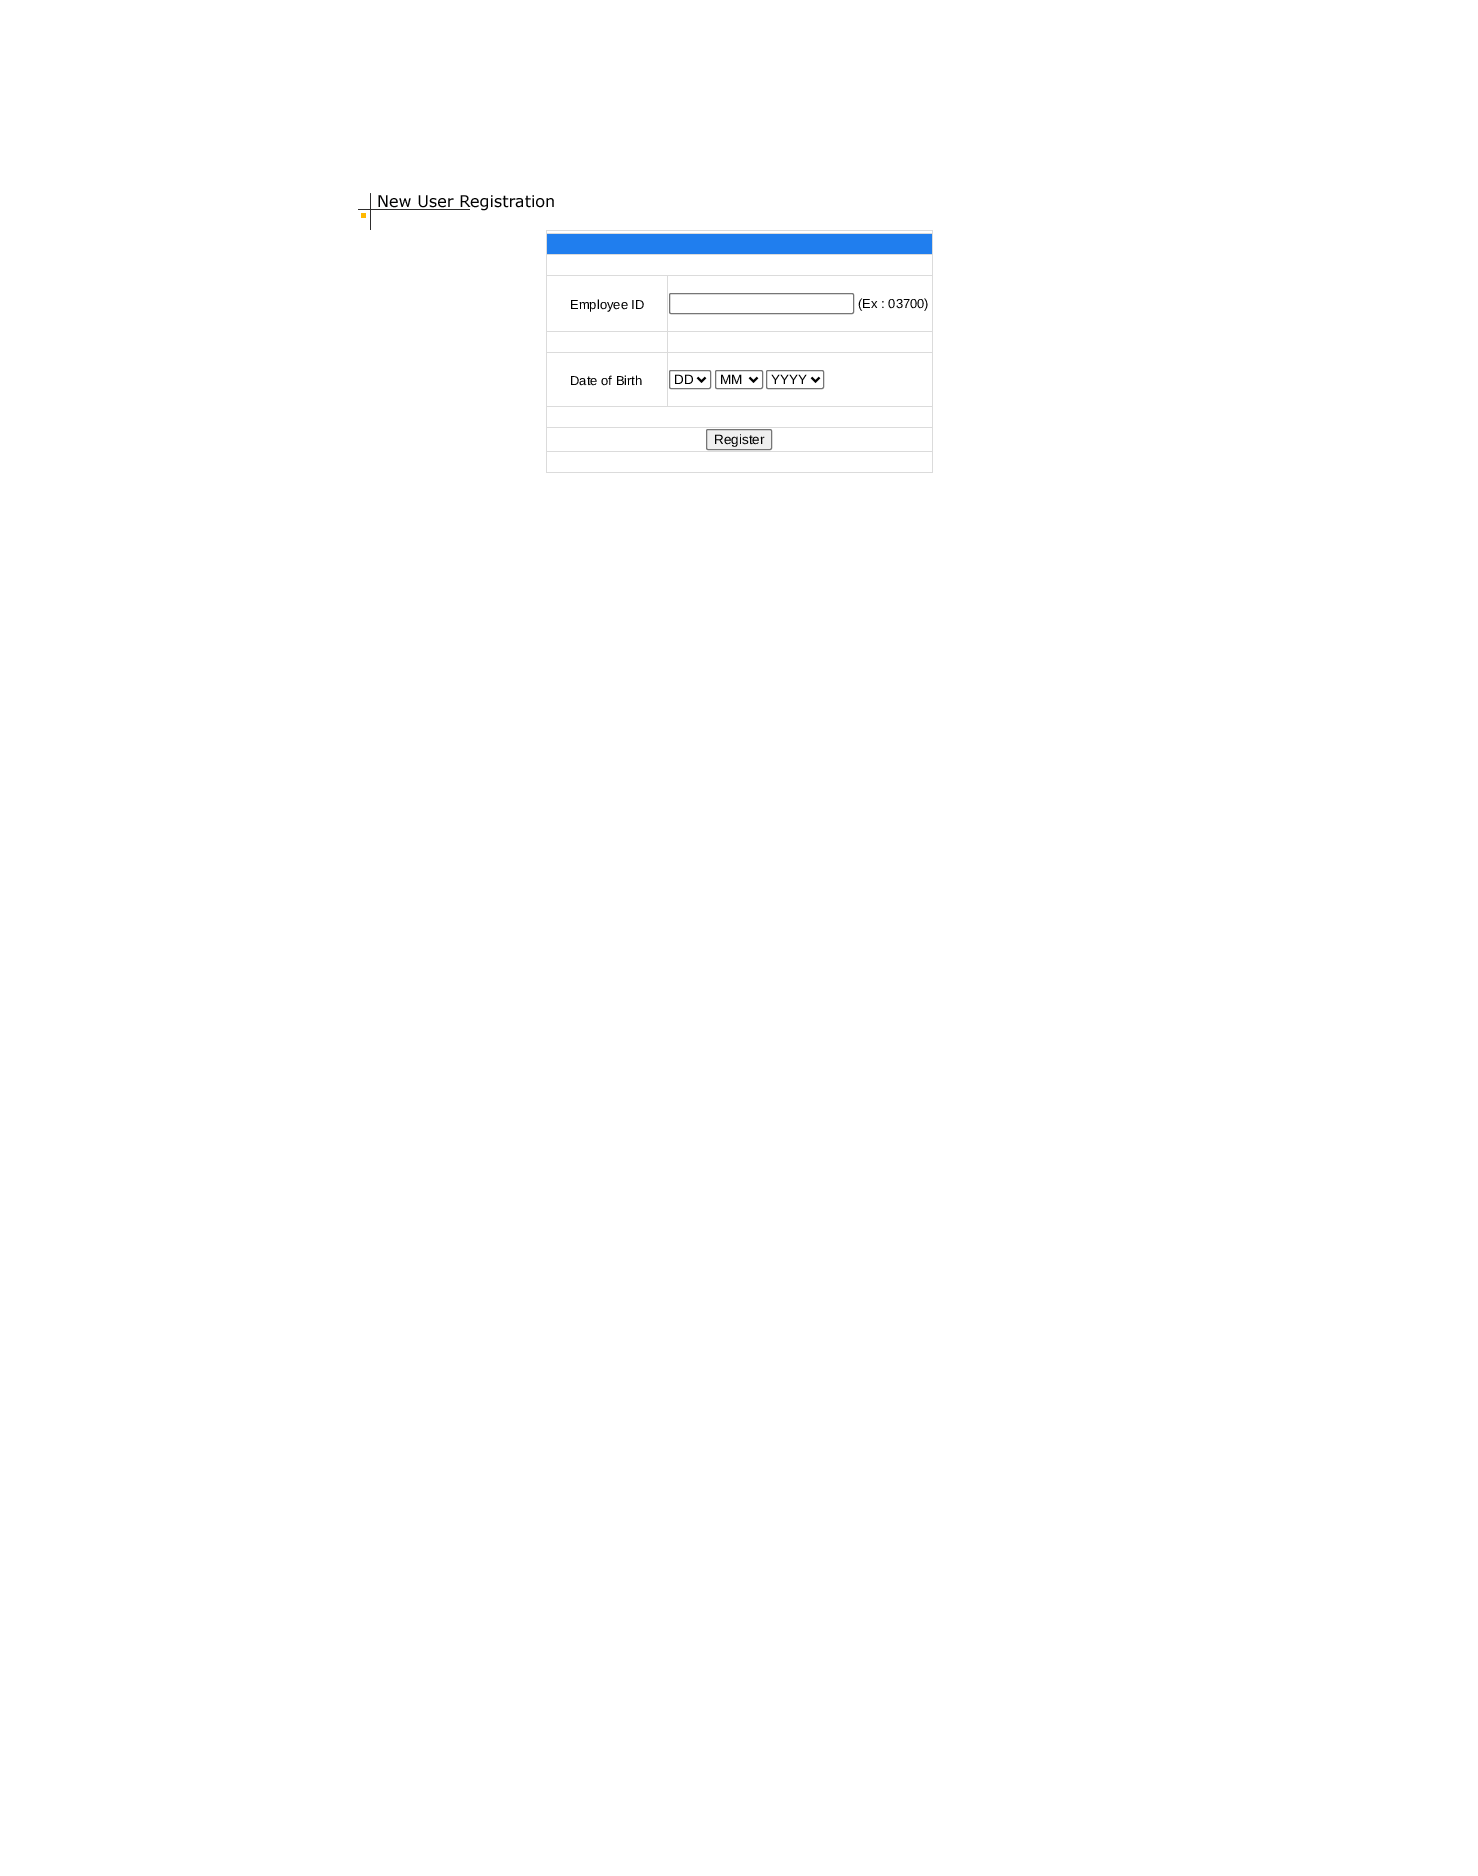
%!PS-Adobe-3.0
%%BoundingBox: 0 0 1478 1876
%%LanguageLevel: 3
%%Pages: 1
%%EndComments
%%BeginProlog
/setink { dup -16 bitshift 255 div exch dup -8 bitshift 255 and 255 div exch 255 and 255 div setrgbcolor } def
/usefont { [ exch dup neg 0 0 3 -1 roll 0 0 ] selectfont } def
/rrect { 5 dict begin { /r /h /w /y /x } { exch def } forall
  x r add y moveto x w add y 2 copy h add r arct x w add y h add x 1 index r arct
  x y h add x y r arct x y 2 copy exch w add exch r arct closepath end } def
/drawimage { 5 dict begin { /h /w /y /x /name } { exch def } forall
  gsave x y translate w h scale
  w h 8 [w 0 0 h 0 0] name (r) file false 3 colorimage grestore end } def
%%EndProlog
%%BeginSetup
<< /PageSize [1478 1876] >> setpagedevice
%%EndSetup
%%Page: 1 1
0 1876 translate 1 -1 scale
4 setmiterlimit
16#FFFFFF setink
0 0 1478 1876 rectfill
(img1.raw) 358 193 196 37 drawimage
[
    [546 230 387 243 16#DBDBDB]
    [547 231 385 2 16#FFFFFF]
    [547 234 385 20 16#207EEE]
    [547 255 385 20 16#FFFFFF]
    [547 276 120 55 16#FFFFFF]
] { aload pop setink rectfill } forall
/LiberationSans-Regular 13 usefont
16#000000 setink
570 309 moveto (Employee ID) show
16#FFFFFF setink
668 276 264 55 rectfill
16#767676 setink
669.5 293.5 184 20 1.5 rrect stroke
16#000000 setink
858 308 moveto (\(Ex : 03700\)) show
[
    [547 332 120 20 16#FFFFFF]
    [668 332 264 20 16#FFFFFF]
    [547 353 120 53 16#FFFFFF]
] { aload pop setink rectfill } forall
16#000000 setink
570 385 moveto (Date of Birth) show
16#FFFFFF setink
668 353 264 53 rectfill
16#767676 setink
669.5 370.5 41 18 1.5 rrect stroke
16#000000 setink
2 setlinewidth
697.5 377.5 moveto 701.5 381.5 lineto 705.5 377.5 lineto stroke
/LiberationSans-Regular 13.5 usefont
674 384 moveto (DD) show
16#767676 setink
1 setlinewidth
715.5 370.5 47 18 1.5 rrect stroke
16#000000 setink
2 setlinewidth
749.5 377.5 moveto 753.5 381.5 lineto 757.5 377.5 lineto stroke
720 384 moveto (MM) show
16#767676 setink
1 setlinewidth
766.5 370.5 57 18 1.5 rrect stroke
16#000000 setink
2 setlinewidth
811.5 377.5 moveto 815.5 381.5 lineto 819.5 377.5 lineto stroke
771 384 moveto (YYYY) show
16#FFFFFF setink
547 407 385 20 rectfill
547 428 385 23 rectfill
16#EFEFEF setink
706.5 429.5 65 20 1.5 rrect gsave fill grestore
16#767676 setink
1 setlinewidth
stroke
16#000000 setink
714 444 moveto (Register) show
16#FFFFFF setink
547 452 385 20 rectfill
showpage
%%EOF
